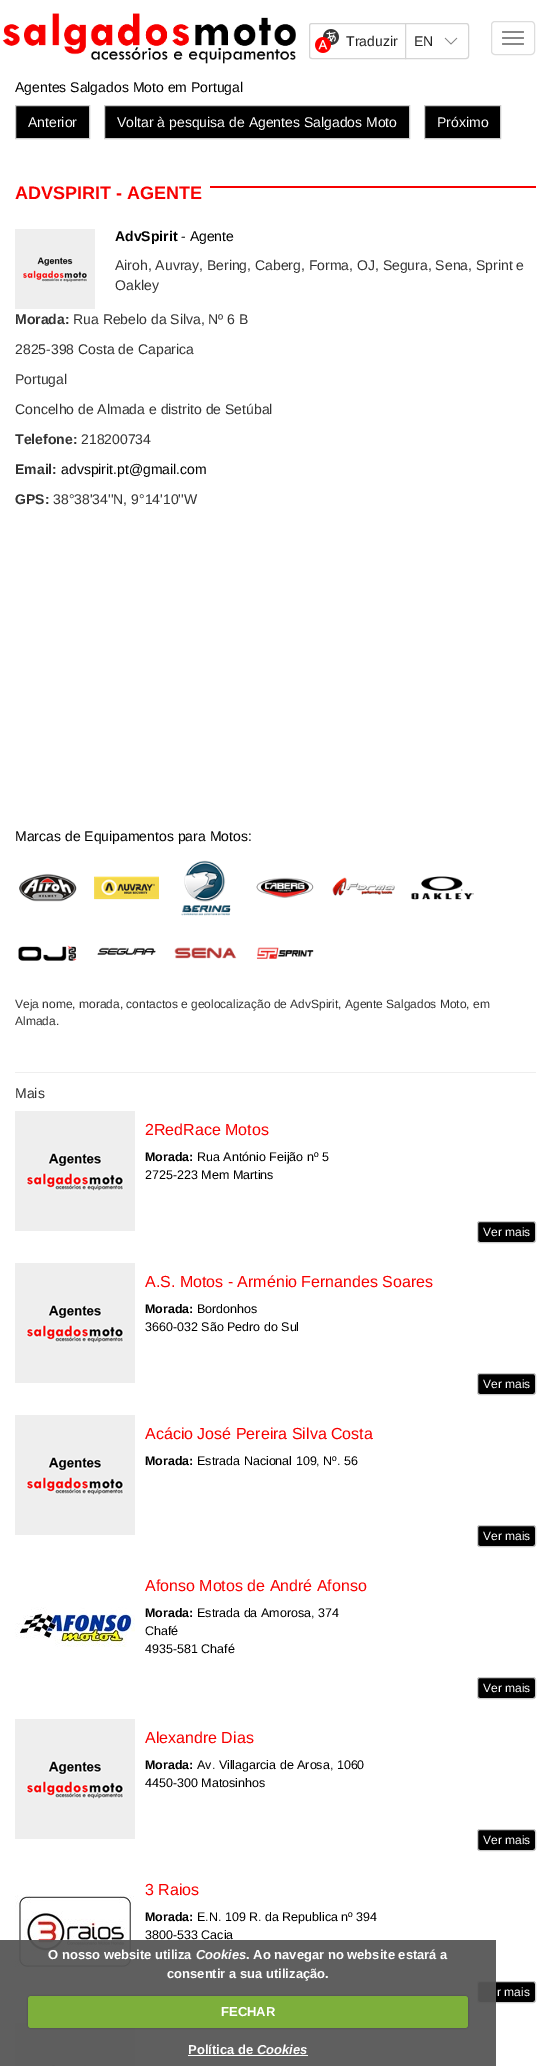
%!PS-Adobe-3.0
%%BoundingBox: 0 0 551 2066
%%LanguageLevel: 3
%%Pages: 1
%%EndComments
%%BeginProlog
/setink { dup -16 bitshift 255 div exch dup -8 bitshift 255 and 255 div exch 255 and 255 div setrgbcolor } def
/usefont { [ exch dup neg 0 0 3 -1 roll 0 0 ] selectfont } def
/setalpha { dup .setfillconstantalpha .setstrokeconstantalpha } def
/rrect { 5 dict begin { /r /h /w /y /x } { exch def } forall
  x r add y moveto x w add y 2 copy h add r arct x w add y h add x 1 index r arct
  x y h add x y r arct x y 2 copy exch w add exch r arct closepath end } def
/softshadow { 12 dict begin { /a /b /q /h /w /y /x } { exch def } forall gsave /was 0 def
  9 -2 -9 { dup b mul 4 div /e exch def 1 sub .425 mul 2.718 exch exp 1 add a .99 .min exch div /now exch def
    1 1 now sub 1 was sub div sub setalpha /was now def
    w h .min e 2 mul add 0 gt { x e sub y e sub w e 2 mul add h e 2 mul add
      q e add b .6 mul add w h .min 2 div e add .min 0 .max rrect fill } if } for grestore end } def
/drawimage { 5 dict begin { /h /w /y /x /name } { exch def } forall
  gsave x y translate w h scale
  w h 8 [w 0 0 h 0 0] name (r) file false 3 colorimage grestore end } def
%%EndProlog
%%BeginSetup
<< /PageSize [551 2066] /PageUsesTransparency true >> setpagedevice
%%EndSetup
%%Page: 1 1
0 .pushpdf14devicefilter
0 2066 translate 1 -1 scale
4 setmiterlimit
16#FFFFFF setink
0 0 551 2066 rectfill
(img1.raw) 2 13 294 51 drawimage
16#D5D5D5 setink
312 23.5 moveto 405.5 23.5 lineto 405.5 58.5 lineto 312 58.5 lineto 310.5 58.5 309.5 57.5 309.5 56 curveto 309.5 26 lineto 309.5 24.5 310.5 23.5 312 23.5 curveto closepath stroke
(img2.raw) 315 29 24 24 drawimage
/LiberationSans-Regular 14 usefont
16#222222 setink
346 46 moveto (Traduzir) show
16#FFFFFF setink
405.5 23.5 moveto 466 23.5 lineto 467.5 23.5 468.5 24.5 468.5 26 curveto 468.5 56 lineto 468.5 57.5 467.5 58.5 466 58.5 curveto 405.5 58.5 lineto closepath gsave fill grestore
16#D5D5D5 setink
stroke
16#222222 setink
414 46 moveto (EN) show
(img3.raw) 444 37 14 8 drawimage
16#DDDDDD setink
491.5 21.5 43 33 3.5 rrect stroke
16#888888 setink
502 31 22 2 1 rrect fill
502 37 22 2 1 rrect fill
502 43 22 2 1 rrect fill
16#000000 setink
15 92 moveto (Agentes Salgados Moto em Portugal) show
15.5 105.5 moveto 89.5 105.5 lineto 89.5 138.5 lineto 15.5 138.5 lineto closepath gsave fill grestore
16#CCCCCC setink
stroke
16#FFFFFF setink
28 127 moveto (Anterior) show
16#000000 setink
104.5 105.5 moveto 409.5 105.5 lineto 409.5 138.5 lineto 104.5 138.5 lineto closepath gsave fill grestore
16#CCCCCC setink
stroke
16#FFFFFF setink
117 127 moveto (Voltar à pesquisa de Agentes Salgados Moto) show
16#000000 setink
424.5 105.5 moveto 500.5 105.5 lineto 500.5 138.5 lineto 424.5 138.5 lineto closepath gsave fill grestore
16#CCCCCC setink
stroke
16#FFFFFF setink
437 127 moveto (Próximo) show
16#F70000 setink
210 186 326 2 rectfill
/LiberationSans-Bold 18 usefont
15 199 moveto (ADVSPIRIT - AGENTE) show
(img4.raw) 15 229 80 80 drawimage
/LiberationSans-Bold 14 usefont
16#000000 setink
115 241 moveto (AdvSpirit) show
/LiberationSans-Regular 14 usefont
181 241 moveto (- Agente) show
16#333333 setink
115 270 moveto (Airoh, Auvray, Bering, Caberg, Forma, OJ, Segura, Sena, Sprint e) show
115 290 moveto (Oakley) show
/LiberationSans-Bold 14 usefont
15 324 moveto (Morada:) show
/LiberationSans-Regular 14 usefont
[
    [(Rua Rebelo da Silva, Nº 6 B) 73 324]
    [(2825-398 Costa de Caparica) 15 354]
    [(Portugal) 15 384]
    [(Concelho de Almada e distrito de Setúbal) 15 414]
] { aload pop moveto show } forall
/LiberationSans-Bold 14 usefont
15 444 moveto (Telefone:) show
/LiberationSans-Regular 14 usefont
81 444 moveto (218200734) show
/LiberationSans-Bold 14 usefont
15 474 moveto (Email:) show
/LiberationSans-Regular 14 usefont
16#000000 setink
61 474 moveto (advspirit.pt@gmail.com) show
/LiberationSans-Bold 14 usefont
16#333333 setink
15 504 moveto (GPS:) show
/LiberationSans-Regular 14 usefont
53 504 moveto (38°38'34''N, 9°14'10''W) show
16#000000 setink
15 841 moveto (Marcas de Equipamentos para Motos:) show
(img5.raw) 19 873 58 29 drawimage
(img6.raw) 94 876 65 24 drawimage
(img7.raw) 181 860 50 56 drawimage
(img8.raw) 256 877 58 21 drawimage
(img9.raw) 332 877 63 19 drawimage
(img10.raw) 411 876 63 24 drawimage
(img11.raw) 18 945 59 16 drawimage
(img12.raw) 97 947 59 8 drawimage
(img13.raw) 174 947 63 12 drawimage
(img14.raw) 256 947 58 12 drawimage
/LiberationSans-Regular 12 usefont
16#333333 setink
15 1008 moveto (Veja nome, morada, contactos e geolocalização de AdvSpirit, Agente Salgados Moto, em) show
15 1025 moveto (Almada.) show
16#EEEEEE setink
15 1072 521 1 rectfill
/LiberationSans-Regular 14 usefont
16#333333 setink
15 1098 moveto (Mais) show
(img15.raw) 15 1111 120 120 drawimage
/LiberationSans-Regular 16 usefont
16#F70000 setink
145 1135 moveto (2RedRace Motos) show
/LiberationSans-Bold 12.5 usefont
16#000000 setink
145 1161 moveto (Morada:) show
/LiberationSans-Regular 12.5 usefont
197 1161 moveto (Rua António Feijão nº 5) show
145 1179 moveto (2725-223 Mem Martins) show
477.5 1221.5 58 21 2.5 rrect gsave fill grestore
16#CCCCCC setink
stroke
/LiberationSans-Regular 12 usefont
16#FFFFFF setink
483 1236 moveto (Ver mais) show
(img15.raw) 15 1263 120 120 drawimage
/LiberationSans-Regular 16 usefont
16#F70000 setink
145 1287 moveto (A.S. Motos - Arménio Fernandes Soares) show
/LiberationSans-Bold 12.5 usefont
16#000000 setink
145 1313 moveto (Morada:) show
/LiberationSans-Regular 12.5 usefont
197 1313 moveto (Bordonhos) show
145 1331 moveto (3660-032 São Pedro do Sul) show
477.5 1373.5 58 21 2.5 rrect gsave fill grestore
16#CCCCCC setink
stroke
/LiberationSans-Regular 12 usefont
16#FFFFFF setink
483 1388 moveto (Ver mais) show
(img15.raw) 15 1415 120 120 drawimage
/LiberationSans-Regular 16 usefont
16#F70000 setink
145 1439 moveto (Acácio José Pereira Silva Costa) show
/LiberationSans-Bold 12.5 usefont
16#000000 setink
145 1465 moveto (Morada:) show
/LiberationSans-Regular 12.5 usefont
197 1465 moveto (Estrada Nacional 109, Nº. 56) show
477.5 1525.5 58 21 2.5 rrect gsave fill grestore
16#CCCCCC setink
stroke
/LiberationSans-Regular 12 usefont
16#FFFFFF setink
483 1540 moveto (Ver mais) show
(img16.raw) 15 1607 120 40 drawimage
/LiberationSans-Regular 16 usefont
16#F70000 setink
145 1591 moveto (Afonso Motos de André Afonso) show
/LiberationSans-Bold 12.5 usefont
16#000000 setink
145 1617 moveto (Morada:) show
/LiberationSans-Regular 12.5 usefont
[
    [(Estrada da Amorosa, 374) 197 1617]
    [(Chafé) 145 1635]
    [(4935-581 Chafé) 145 1653]
] { aload pop moveto show } forall
477.5 1677.5 58 21 2.5 rrect gsave fill grestore
16#CCCCCC setink
stroke
/LiberationSans-Regular 12 usefont
16#FFFFFF setink
483 1692 moveto (Ver mais) show
(img15.raw) 15 1719 120 120 drawimage
/LiberationSans-Regular 16 usefont
16#F70000 setink
145 1743 moveto (Alexandre Dias) show
/LiberationSans-Bold 12.5 usefont
16#000000 setink
145 1769 moveto (Morada:) show
/LiberationSans-Regular 12.5 usefont
197 1769 moveto (Av. Villagarcia de Arosa, 1060) show
145 1787 moveto (4450-300 Matosinhos) show
477.5 1829.5 58 21 2.5 rrect gsave fill grestore
16#CCCCCC setink
stroke
/LiberationSans-Regular 12 usefont
16#FFFFFF setink
483 1844 moveto (Ver mais) show
(img17.raw) 15 1895 119 72 drawimage
/LiberationSans-Regular 16 usefont
16#F70000 setink
145 1895 moveto (3 Raios) show
/LiberationSans-Bold 12.5 usefont
16#000000 setink
145 1921 moveto (Morada:) show
/LiberationSans-Regular 12.5 usefont
197 1921 moveto (E.N. 109 R. da Republica nº 394) show
145 1939 moveto (3800-533 Cacia) show
477.5 1981.5 58 21 2.5 rrect gsave fill grestore
16#CCCCCC setink
stroke
/LiberationSans-Regular 12 usefont
16#FFFFFF setink
497 1996 moveto (r mais) show
(img18.raw) 15 2023 120 43 drawimage
0.95 setalpha
16#565656 setink
0 1940 496 126 rectfill
/LiberationSans-Bold 13 usefont
1 setalpha
16#FFFFFF setink
48 1959 moveto (O nosso website utiliza) show
/LiberationSans-BoldItalic 13 usefont
196 1959 moveto (Cookies) show
/LiberationSans-Bold 13 usefont
246 1959 moveto (. Ao navegar no website estará a) show
167 1978 moveto (consentir a sua utilização.) show
16#000000 setink
28 1996 440 32 3 1 0.25 softshadow
16#7DAF3B setink
28 1996 440 32 3 rrect fill
16#FFFFFF setink
221 2016 moveto (FECHAR) show
188 2054 moveto (Política de) show
188 2055 120 1 rectfill
/LiberationSans-BoldItalic 13 usefont
257 2054 moveto (Cookies) show
.poppdf14devicefilter showpage
%%EOF
